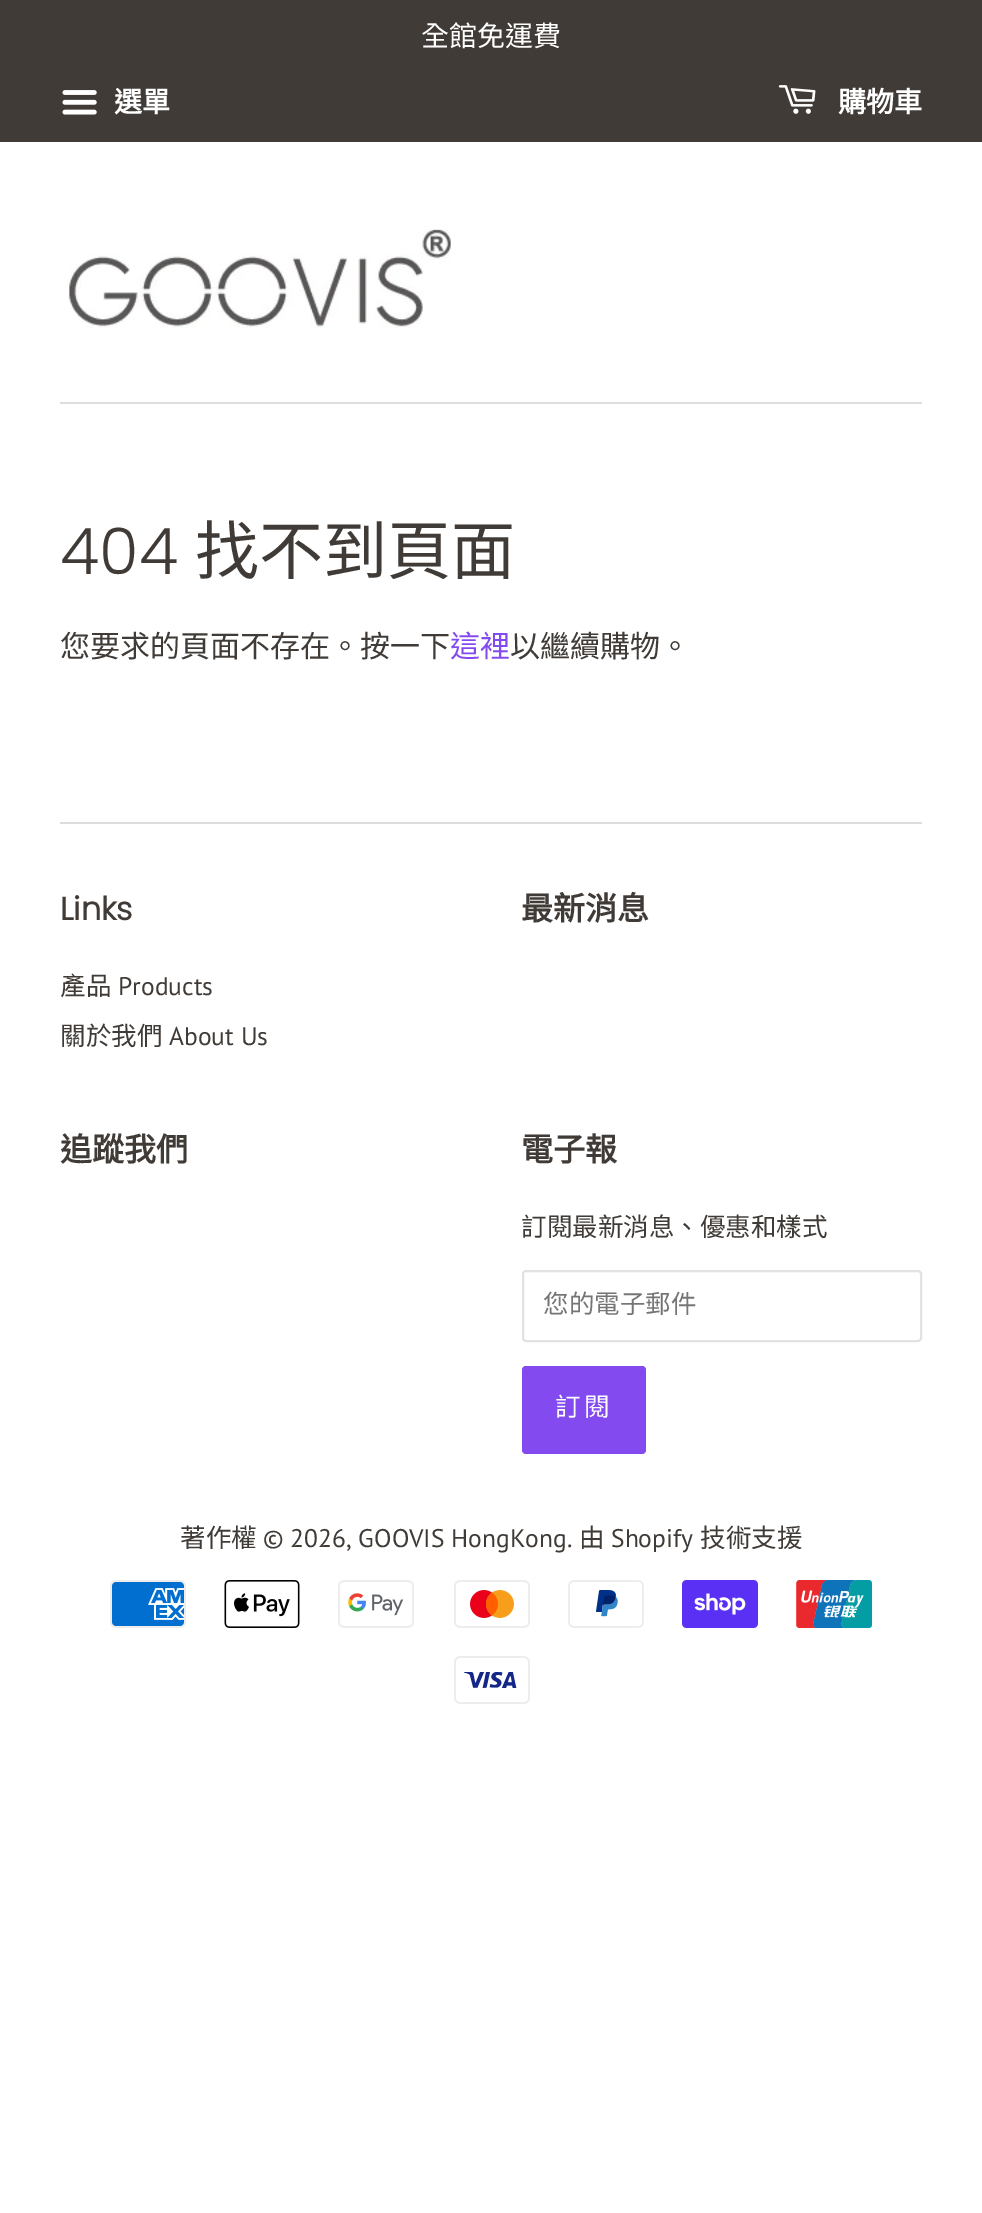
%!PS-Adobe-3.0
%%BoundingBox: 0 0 982 2213
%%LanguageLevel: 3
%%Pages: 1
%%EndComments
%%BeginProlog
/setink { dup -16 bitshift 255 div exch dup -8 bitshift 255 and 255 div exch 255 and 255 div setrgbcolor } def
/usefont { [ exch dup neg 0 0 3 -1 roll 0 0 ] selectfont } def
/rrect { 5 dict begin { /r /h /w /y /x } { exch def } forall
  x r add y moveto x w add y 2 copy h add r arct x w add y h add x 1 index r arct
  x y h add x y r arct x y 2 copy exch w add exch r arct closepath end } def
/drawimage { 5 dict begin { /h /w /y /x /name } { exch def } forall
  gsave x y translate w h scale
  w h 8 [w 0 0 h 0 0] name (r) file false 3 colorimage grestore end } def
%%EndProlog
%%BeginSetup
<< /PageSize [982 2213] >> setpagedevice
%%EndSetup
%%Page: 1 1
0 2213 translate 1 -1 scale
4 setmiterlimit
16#FFFFFF setink
0 0 982 2213 rectfill
16#403B37 setink
0 0 982 142 rectfill
/NotoSansCJKTC-Regular 28 usefont
16#FFFFFF setink
421 46 moveto (全館免運費) show
(img1.raw) 62 90 35 25 drawimage
/NotoSansCJKTC-Bold 28 usefont
114 112 moveto (選單) show
(img2.raw) 778 85 38 29 drawimage
838 112 moveto (購物車) show
16#DDDDDD setink
60 402 862 2 rectfill
(img3.raw) 68 229 383 100 drawimage
/Poppins-Light 64 usefont
16#403B37 setink
60 574 moveto (404) show
/NotoSansCJKTC-Regular 64 usefont
195 574 moveto (找不到頁面) show
/NotoSansCJKTC-Regular 30 usefont
60 657 moveto (您要求的頁面不存在。按一下) show
16#834BEF setink
450 657 moveto (這裡) show
16#403B37 setink
510 657 moveto (以繼續購物。) show
16#DDDDDD setink
60 822 862 2 rectfill
/Poppins-Bold 32 usefont
16#403B37 setink
60 920 moveto (Links) show
/NotoSansCJKTC-Regular 25.5 usefont
60 995 moveto (產品) show
/PTSans-Regular 25.5 usefont
118 995 moveto (Products) show
/NotoSansCJKTC-Regular 25.5 usefont
60 1045 moveto (關於我們) show
/PTSans-Regular 25.5 usefont
169 1045 moveto (About Us) show
/NotoSansCJKTC-Bold 32 usefont
[
    [(最新消息) 521 920]
    [(追蹤我們) 60 1161]
    [(電子報) 521 1161]
] { aload pop moveto show } forall
/NotoSansCJKTC-Regular 25.5 usefont
521 1236 moveto (訂閱最新消息、優惠和樣式) show
16#E2E2E1 setink
2 setlinewidth
523 1271 398 70 3 rrect stroke
16#757575 setink
543 1313 moveto (您的電子郵件) show
16#834BEF setink
522 1366 124 88 4 rrect fill
16#FFFFFF setink
555 1416 moveto 3 0 (訂閱) ashow
16#403B37 setink
180 1547 moveto (著作權) show
/PTSans-Regular 25.5 usefont
263 1547 moveto (© 2026, GOOVIS HongKong.) show
/NotoSansCJKTC-Regular 25.5 usefont
579 1547 moveto (由) show
/PTSans-Regular 25.5 usefont
611 1547 moveto (Shopify) show
/NotoSansCJKTC-Regular 25.5 usefont
700 1547 moveto (技術支援) show
(img4.raw) 110 1580 76 48 drawimage
(img5.raw) 224 1580 76 48 drawimage
(img6.raw) 338 1580 76 48 drawimage
(img7.raw) 454 1580 76 48 drawimage
(img8.raw) 568 1580 76 48 drawimage
(img9.raw) 682 1580 76 48 drawimage
(img10.raw) 796 1580 76 48 drawimage
(img11.raw) 454 1656 76 48 drawimage
showpage
%%EOF
